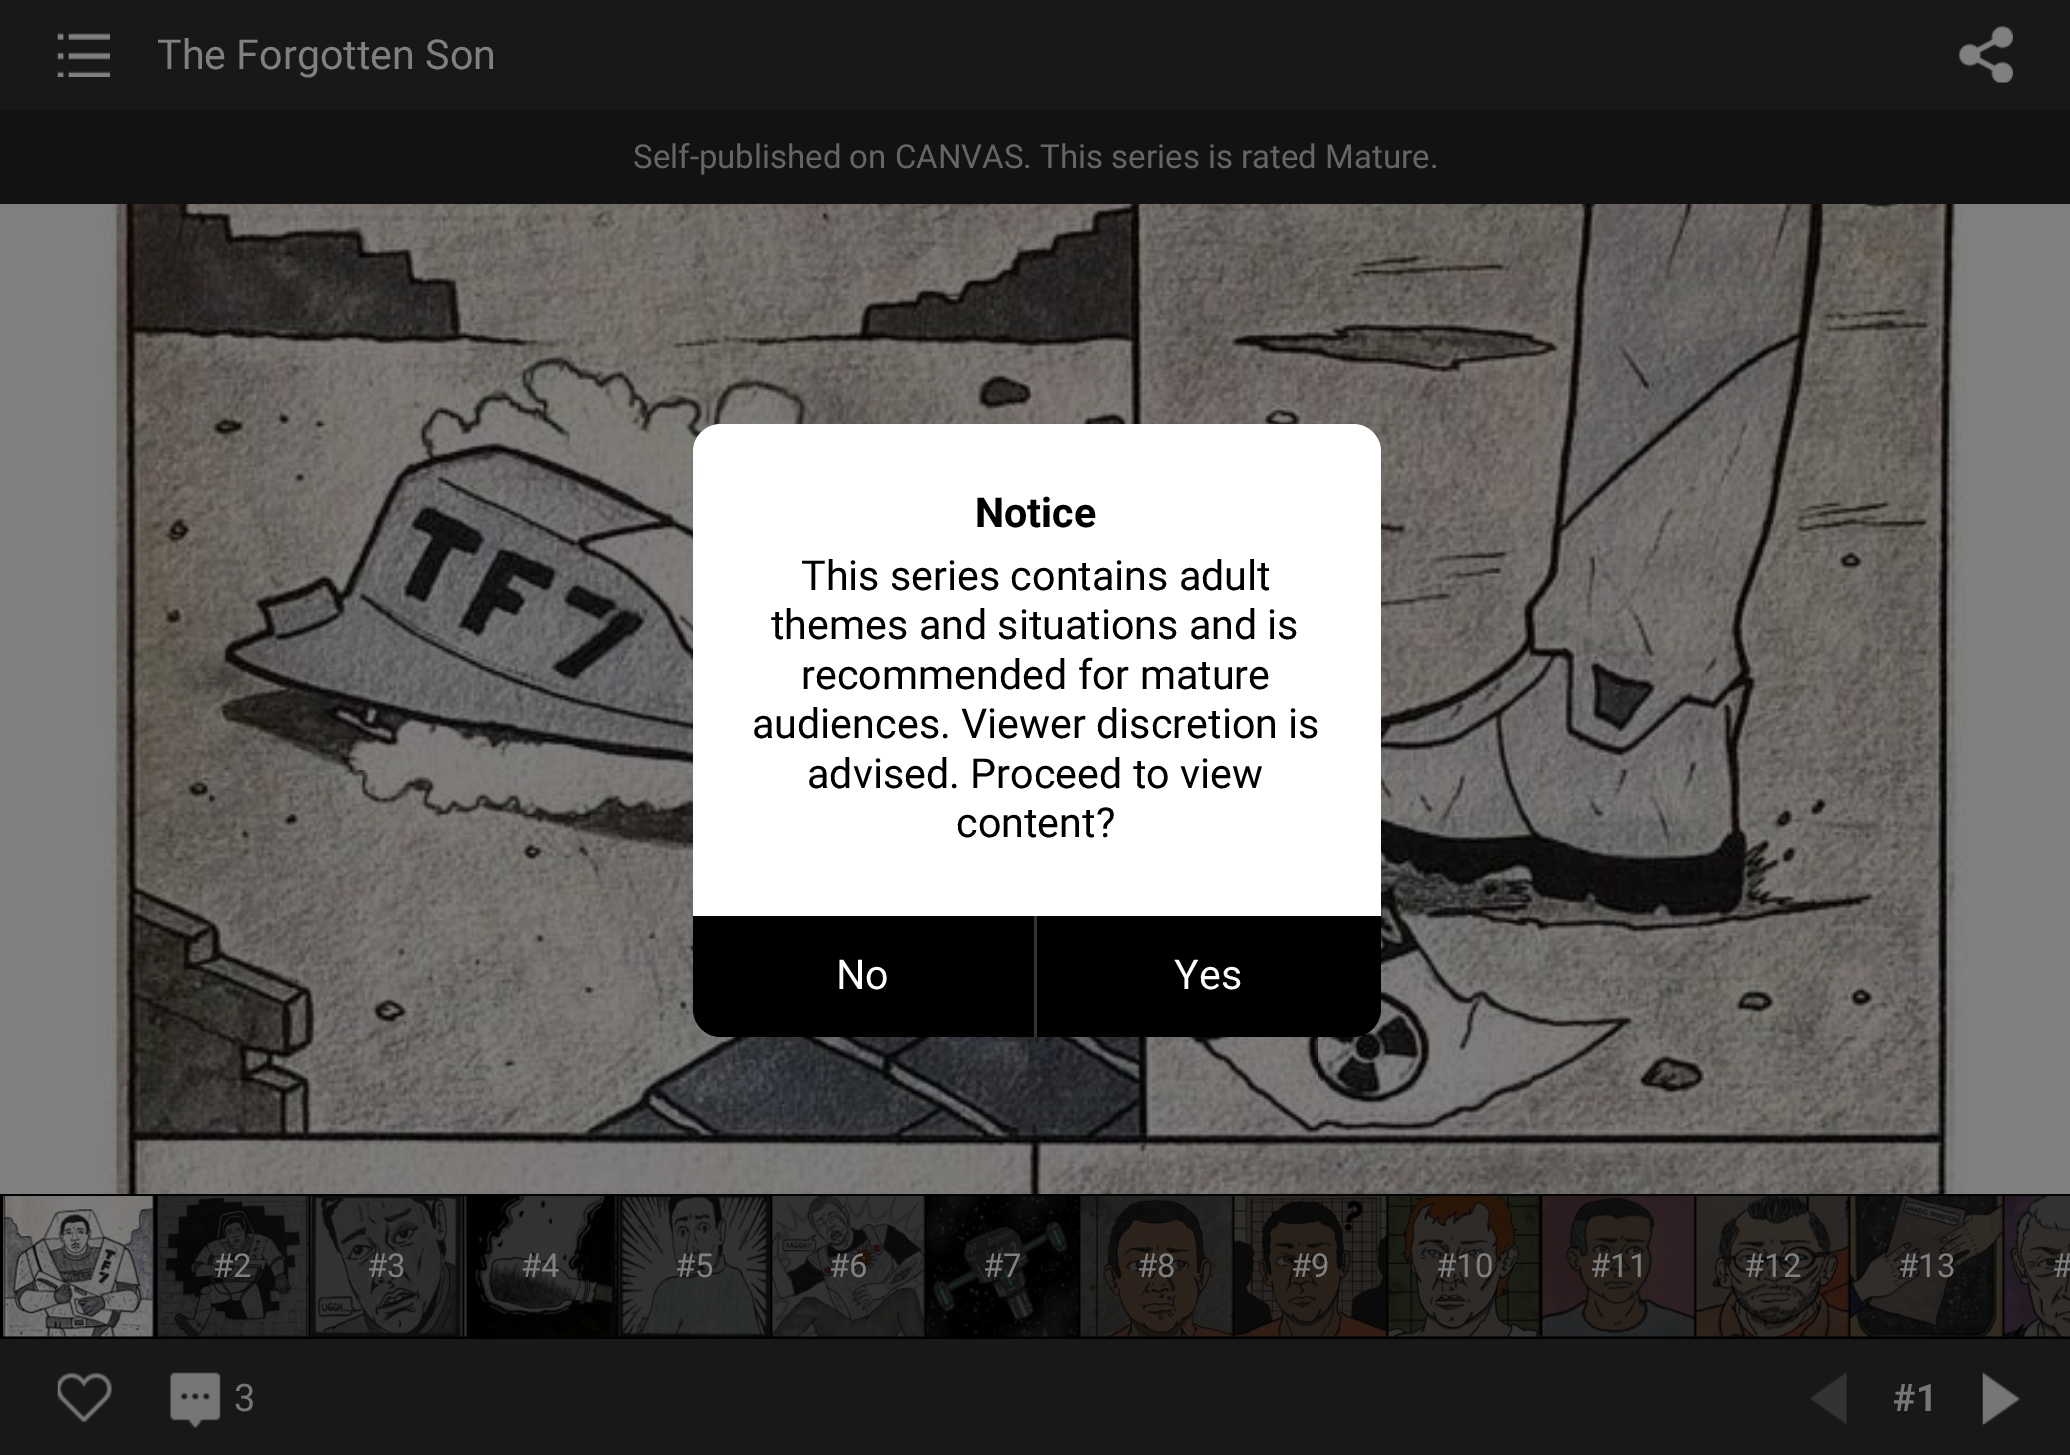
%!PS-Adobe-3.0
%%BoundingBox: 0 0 2070 1455
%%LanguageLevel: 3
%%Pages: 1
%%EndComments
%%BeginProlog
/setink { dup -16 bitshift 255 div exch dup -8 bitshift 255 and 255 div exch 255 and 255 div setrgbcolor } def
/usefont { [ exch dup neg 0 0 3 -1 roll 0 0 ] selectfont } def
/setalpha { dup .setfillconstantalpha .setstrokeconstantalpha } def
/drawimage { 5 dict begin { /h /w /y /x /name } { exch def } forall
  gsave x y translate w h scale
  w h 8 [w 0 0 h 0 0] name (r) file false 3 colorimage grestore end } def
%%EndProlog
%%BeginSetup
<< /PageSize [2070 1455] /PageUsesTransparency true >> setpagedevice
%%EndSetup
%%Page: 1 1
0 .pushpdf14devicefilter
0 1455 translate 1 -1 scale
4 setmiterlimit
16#808080 setink
0 0 2070 1455 rectfill
16#181818 setink
0 0 2070 110 rectfill
(img1.raw) 57 33 53 44 drawimage
/Roboto-Regular 41.25 usefont
16#808080 setink
157 69 moveto (The Forgotten Son) show
(img2.raw) 1958 26 55 57 drawimage
16#121212 setink
0 110 2070 94 rectfill
/Roboto-Regular 33 usefont
16#656565 setink
633 168 moveto (Self-published on CANVAS. This series is rated Mature.) show
(img3.raw) 93 204 1875 990 drawimage
16#181818 setink
0 1339 2070 116 rectfill
16#000000 setink
0 1194 2070 145 rectfill
(img4.raw) 3 1196 152 141 drawimage
(img5.raw) 157 1196 152 141 drawimage
0.6 setalpha
157 1196 151 141 rectfill
1 setalpha
16#808080 setink
213 1277 moveto (#2) show
(img6.raw) 310 1196 153 141 drawimage
0.6 setalpha
16#000000 setink
311 1196 151 141 rectfill
1 setalpha
16#808080 setink
367 1277 moveto (#3) show
(img7.raw) 464 1196 153 141 drawimage
0.6 setalpha
16#000000 setink
465 1196 151 141 rectfill
1 setalpha
16#808080 setink
521 1277 moveto (#4) show
(img8.raw) 618 1196 153 141 drawimage
0.6 setalpha
16#000000 setink
619 1196 151 141 rectfill
1 setalpha
16#808080 setink
675 1277 moveto (#5) show
(img9.raw) 772 1196 153 141 drawimage
0.6 setalpha
16#000000 setink
773 1196 151 141 rectfill
1 setalpha
16#808080 setink
829 1277 moveto (#6) show
(img10.raw) 926 1196 153 141 drawimage
0.6 setalpha
16#000000 setink
927 1196 151 141 rectfill
1 setalpha
16#808080 setink
983 1277 moveto (#7) show
(img11.raw) 1080 1196 153 141 drawimage
0.6 setalpha
16#000000 setink
1081 1196 151 141 rectfill
1 setalpha
16#808080 setink
1137 1277 moveto (#8) show
(img12.raw) 1234 1196 153 141 drawimage
0.6 setalpha
16#000000 setink
1235 1196 151 141 rectfill
1 setalpha
16#808080 setink
1291 1277 moveto (#9) show
(img13.raw) 1388 1196 153 141 drawimage
0.6 setalpha
16#000000 setink
1389 1196 151 141 rectfill
1 setalpha
16#808080 setink
1436 1277 moveto (#10) show
(img14.raw) 1542 1196 153 141 drawimage
0.6 setalpha
16#000000 setink
1543 1196 151 141 rectfill
1 setalpha
16#808080 setink
1590 1277 moveto (#11) show
(img15.raw) 1696 1196 153 141 drawimage
0.6 setalpha
16#000000 setink
1697 1196 151 141 rectfill
1 setalpha
16#808080 setink
1744 1277 moveto (#12) show
(img16.raw) 1850 1196 153 141 drawimage
0.6 setalpha
16#000000 setink
1851 1196 151 141 rectfill
1 setalpha
16#808080 setink
1898 1277 moveto (#13) show
(img17.raw) 2004 1196 66 141 drawimage
2052 1277 moveto (#) show
(img18.raw) 57 1372 55 51 drawimage
(img19.raw) 169 1372 52 56 drawimage
/Roboto-Regular 38 usefont
16#767676 setink
234 1411 moveto (3) show
(img20.raw) 1809 1372 38 53 drawimage
/Roboto-Bold 38 usefont
1893 1411 moveto (#1) show
(img21.raw) 1982 1372 39 54 drawimage
16#FFFFFF setink
721 424 moveto 1353 424 lineto 1368.5 424 1381 436.5 1381 452 curveto 1381 916 lineto 693 916 lineto 693 452 lineto 693 436.5 705.5 424 721 424 curveto closepath fill
/Roboto-Bold 41.25 usefont
16#000000 setink
975 527 moveto (Notice) show
/Roboto-Regular 41.25 usefont
[
    [(This series contains adult) 801 590]
    [(themes and situations and is) 771 639]
    [(recommended for mature) 801 689]
    [(audiences. Viewer discretion is) 752 738]
    [(advised. Proceed to view) 807 788]
    [(content?) 956 837]
] { aload pop moveto show } forall
693 916 moveto 1381 916 lineto 1381 1009 lineto 1381 1024.5 1368.5 1037 1353 1037 curveto 721 1037 lineto 705.5 1037 693 1024.5 693 1009 curveto closepath fill
16#FFFFFF setink
836 989 moveto (No) show
16#333333 setink
1034 916 3 121 rectfill
16#FFFFFF setink
1174 989 moveto (Yes) show
.poppdf14devicefilter showpage
%%EOF
